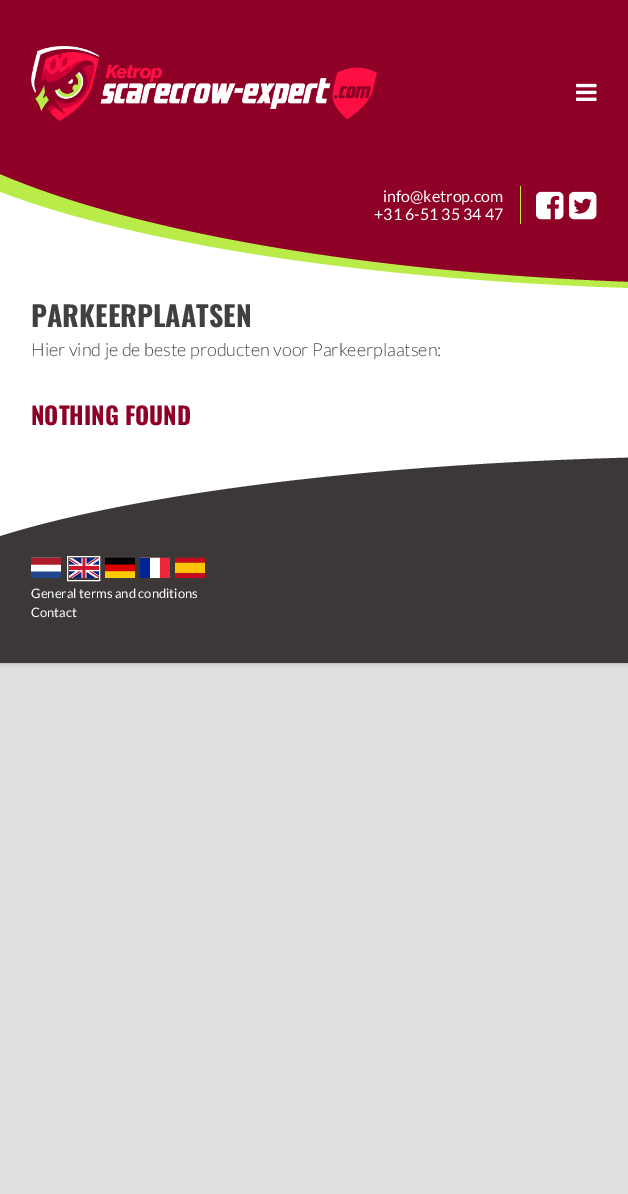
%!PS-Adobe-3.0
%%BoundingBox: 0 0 628 1194
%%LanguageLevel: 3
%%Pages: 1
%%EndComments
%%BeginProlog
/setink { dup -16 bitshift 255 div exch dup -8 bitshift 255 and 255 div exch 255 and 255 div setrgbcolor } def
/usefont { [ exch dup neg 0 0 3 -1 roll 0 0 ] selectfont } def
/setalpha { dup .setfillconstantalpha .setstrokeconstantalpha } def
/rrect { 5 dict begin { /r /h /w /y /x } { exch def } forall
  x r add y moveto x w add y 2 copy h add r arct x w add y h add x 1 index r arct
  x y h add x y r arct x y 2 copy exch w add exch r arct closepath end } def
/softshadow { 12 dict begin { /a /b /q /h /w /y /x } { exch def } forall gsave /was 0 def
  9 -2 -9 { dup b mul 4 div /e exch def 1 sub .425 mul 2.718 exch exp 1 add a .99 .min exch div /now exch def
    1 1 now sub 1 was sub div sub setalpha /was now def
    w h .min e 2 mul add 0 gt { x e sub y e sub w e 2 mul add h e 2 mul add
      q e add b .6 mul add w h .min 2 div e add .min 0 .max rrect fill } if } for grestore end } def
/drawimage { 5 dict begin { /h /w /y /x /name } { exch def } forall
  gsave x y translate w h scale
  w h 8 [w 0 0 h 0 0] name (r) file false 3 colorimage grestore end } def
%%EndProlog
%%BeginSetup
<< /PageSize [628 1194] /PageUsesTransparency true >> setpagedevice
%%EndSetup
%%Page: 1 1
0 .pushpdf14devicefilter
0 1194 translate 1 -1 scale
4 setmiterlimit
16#E0DEDE setink
0 0 628 1194 rectfill
16#000000 setink
0 0 628 663 0 2.5 0.25 softshadow
16#FFFFFF setink
0 191 628 346 rectfill
16#B9EC49 setink
-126 0 moveto 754 0 lineto 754 290 lineto 268 290 -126 199 -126 87 curveto closepath fill
16#8E0025 setink
-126 0 moveto 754 0 lineto 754 284 lineto 268 284 -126 182 -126 57 curveto closepath fill
(img1.raw) 31 46 346 75 drawimage
(img2.raw) 576 83 21 18 drawimage
/Lato-Regular 16 usefont
16#FFFFFF setink
383 202 moveto (info@ketrop.com) show
374 220 moveto (+31 6-51 35 34 47) show
16#B9EC49 setink
520 186 1 38 rectfill
(img3.raw) 536 191 28 29 drawimage
(img4.raw) 569 191 28 29 drawimage
/Oswald-Bold 28 usefont
16#404040 setink
31 327 moveto (PARKEERPLAATSEN) show
/Lato-Light 18 usefont
31 356 moveto (Hier vind je de beste producten voor Parkeerplaatsen:) show
/Oswald-Bold 24 usefont
16#8E0025 setink
31 425 moveto (NOTHING FOUND) show
16#3C3838 setink
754 456 moveto 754 663 lineto -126 663 lineto -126 622 lineto -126 530 268 456 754 456 curveto closepath fill
(img5.raw) 31 557 30 21 drawimage
16#FFFFFF setink
67.5 556.5 32 24 rectstroke
(img6.raw) 69 558 30 20 drawimage
(img7.raw) 105 557 30 21 drawimage
(img8.raw) 140 557 30 21 drawimage
(img9.raw) 175 557 30 21 drawimage
/Lato-Regular 13 usefont
31 598 moveto (General terms and conditions) show
31 617 moveto (Contact) show
.poppdf14devicefilter showpage
%%EOF
